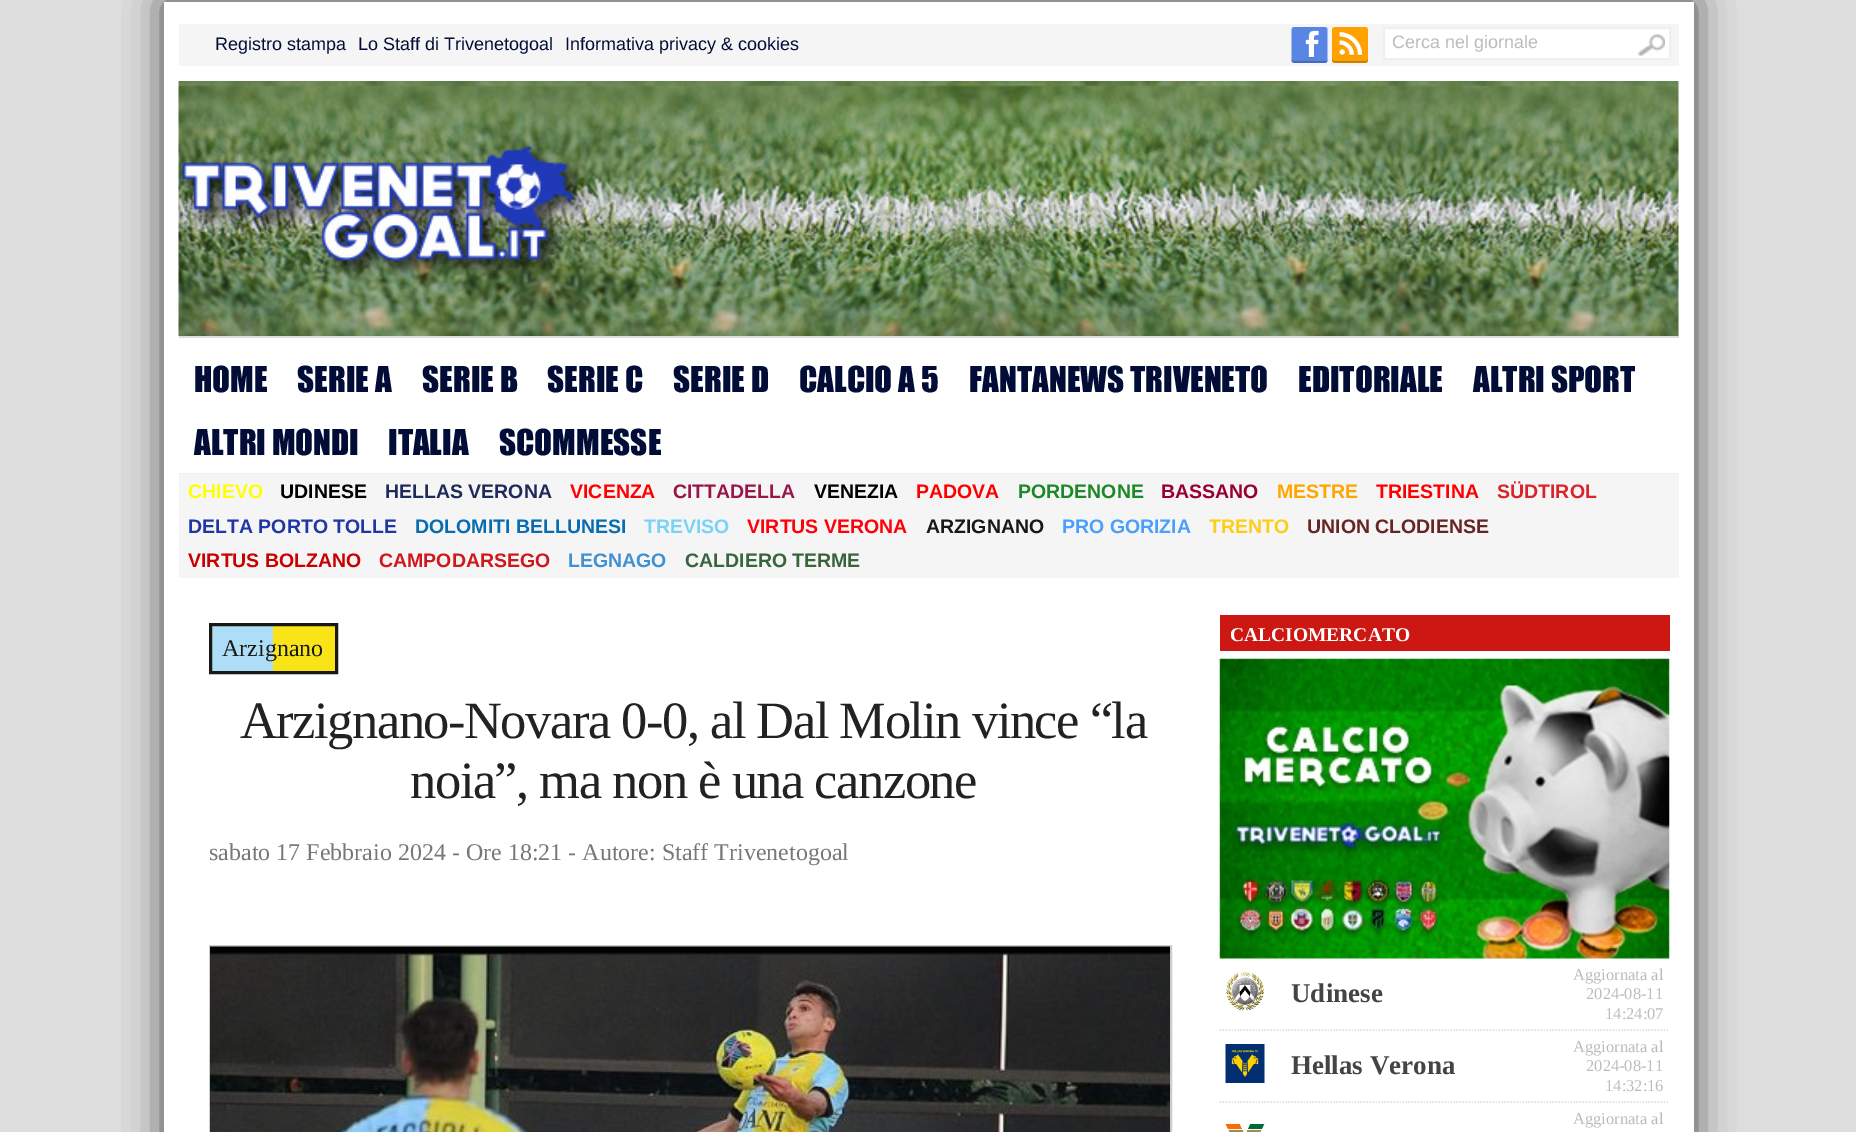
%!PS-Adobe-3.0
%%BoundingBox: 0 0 1856 1132
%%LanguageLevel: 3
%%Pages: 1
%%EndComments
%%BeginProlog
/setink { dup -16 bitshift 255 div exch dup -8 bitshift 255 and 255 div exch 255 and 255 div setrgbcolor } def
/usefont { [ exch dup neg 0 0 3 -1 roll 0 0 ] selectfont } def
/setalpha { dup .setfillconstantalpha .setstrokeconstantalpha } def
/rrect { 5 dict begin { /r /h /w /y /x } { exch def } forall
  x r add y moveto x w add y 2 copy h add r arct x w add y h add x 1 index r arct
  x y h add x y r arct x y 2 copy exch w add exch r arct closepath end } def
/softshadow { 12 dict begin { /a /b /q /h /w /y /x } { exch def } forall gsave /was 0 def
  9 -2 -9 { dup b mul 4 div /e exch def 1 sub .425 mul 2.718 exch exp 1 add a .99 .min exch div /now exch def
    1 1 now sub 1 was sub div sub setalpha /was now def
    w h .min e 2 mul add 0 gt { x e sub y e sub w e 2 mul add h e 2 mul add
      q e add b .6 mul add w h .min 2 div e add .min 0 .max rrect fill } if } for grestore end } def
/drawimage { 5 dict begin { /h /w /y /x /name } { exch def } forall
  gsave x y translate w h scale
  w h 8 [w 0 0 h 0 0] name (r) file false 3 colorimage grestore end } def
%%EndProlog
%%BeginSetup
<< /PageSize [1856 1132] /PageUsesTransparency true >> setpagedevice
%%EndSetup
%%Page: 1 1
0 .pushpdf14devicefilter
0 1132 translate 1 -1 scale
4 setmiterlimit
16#DDDDDD setink
0 0 1856 1132 rectfill
16#444444 setink
164 2 1530 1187 0 19 1 softshadow
16#FFFFFF setink
164 2 1530 1130 rectfill
16#F5F5F5 setink
179 24 1500 42 rectfill
/LiberationSans-Regular 18 usefont
16#010D37 setink
[
    [(Registro stampa) 215 50]
    [(Lo Staff di Trivenetogoal) 358 50]
    [(Informativa privacy & cookies) 565 50]
] { aload pop moveto show } forall
(img1.raw) 1291 27 37 36 drawimage
(img2.raw) 1332 27 36 36 drawimage
16#FFFFFF setink
1384 28 moveto 1670 28 lineto 1670 59 lineto 1384 59 lineto closepath gsave fill grestore
16#EFEFEF setink
2 setlinewidth
stroke
16#BBBBBB setink
1392 48 moveto (Cerca nel giornale) show
(img3.raw) 1638 34 27 22 drawimage
(img4.raw) 178 81 1501 255 drawimage
16#DDDDDD setink
179 336 1500 2 rectfill
16#EFEFEF setink
179 473 1500 1 rectfill
/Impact-Regular 33 usefont
16#010D37 setink
[
    [(HOME) 194 392]
    [(SERIE A) 297 392]
    [(SERIE B) 422 392]
    [(SERIE C) 547 392]
    [(SERIE D) 673 392]
    [(CALCIO A 5) 799 392]
    [(FANTANEWS TRIVENETO) 969 392]
    [(EDITORIALE) 1298 392]
    [(ALTRI SPORT) 1473 392]
    [(ALTRI MONDI) 194 455]
    [(ITALIA) 388 455]
    [(SCOMMESSE) 499 455]
] { aload pop moveto show } forall
16#F5F5F5 setink
179 474 1500 104 rectfill
/LiberationSans-Bold 19.5 usefont
16#FFFF00 setink
188 498 moveto (CHIEVO) show
16#000000 setink
280 498 moveto (UDINESE) show
16#202A5A setink
385 498 moveto (HELLAS VERONA) show
16#FF0000 setink
570 498 moveto (VICENZA) show
16#991648 setink
673 498 moveto (CITTADELLA) show
16#000000 setink
814 498 moveto (VENEZIA) show
16#FF0000 setink
916 498 moveto (PADOVA) show
16#1E8728 setink
1018 498 moveto (PORDENONE) show
16#99002F setink
1161 498 moveto (BASSANO) show
16#FFA500 setink
1277 498 moveto (MESTRE) show
16#FF0000 setink
1376 498 moveto (TRIESTINA) show
16#DA2429 setink
1497 498 moveto (SÜDTIROL) show
16#2036A5 setink
188 533 moveto (DELTA PORTO TOLLE) show
16#076DB0 setink
415 533 moveto (DOLOMITI BELLUNESI) show
16#78D3F7 setink
644 533 moveto (TREVISO) show
16#FF0007 setink
747 533 moveto (VIRTUS VERONA) show
16#191815 setink
926 533 moveto (ARZIGNANO) show
16#4A9FFD setink
1062 533 moveto (PRO GORIZIA) show
16#FECE14 setink
1209 533 moveto (TRENTO) show
16#662523 setink
1307 533 moveto (UNION CLODIENSE) show
16#CA0000 setink
188 567 moveto (VIRTUS BOLZANO) show
16#CF181D setink
379 567 moveto (CAMPODARSEGO) show
16#4090D2 setink
568 567 moveto (LEGNAGO) show
16#38653B setink
685 567 moveto (CALDIERO TERME) show
16#AEDEF7 setink
212 626 61 45 rectfill
16#F9E418 setink
273 626 62 45 rectfill
16#191815 setink
3 setlinewidth
210.5 624.5 126 48 rectstroke
/LiberationSerif-Regular 24 usefont
222 656 moveto (Arzignano) show
/LiberationSerif-Regular 52.5 usefont
16#222222 setink
240 738 moveto -1.5 0 (Arzignano-Novara 0-0, al Dal Molin vince “la) ashow
410 798 moveto -1.5 0 (noia”, ma non è una canzone) ashow
/LiberationSerif-Regular 24 usefont
16#777777 setink
209 860 moveto (sabato 17 Febbraio 2024 - Ore 18:21 - Autore: Staff Trivenetogoal) show
16#CCCCCC setink
2 setlinewidth
210 946 961 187 rectstroke
(img5.raw) 210 946 960 186 drawimage
16#CD1713 setink
1220 615 450 36 rectfill
/LiberationSerif-Bold 19.5 usefont
16#FFFFFF setink
1230 641 moveto (CALCIOMERCATO) show
(img6.raw) 1219 658 451 301 drawimage
16#DDDDDD setink
1.5 setlinewidth
[1.5 1.5] 0 setdash
1219.5 1030 moveto 1669.5 1030 lineto stroke
(img7.raw) 1225 972 40 39 drawimage
/LiberationSerif-Bold 27 usefont
16#444444 setink
1291 1002 moveto (Udinese) show
/LiberationSerif-Regular 16.5 usefont
16#BBBBBB setink
[
    [(Aggiornata al) 1573 980]
    [(2024-08-11) 1586 999]
    [(14:24:07) 1605 1019]
] { aload pop moveto show } forall
16#DDDDDD setink
1219.5 1102 moveto 1669.5 1102 lineto stroke
(img8.raw) 1225 1044 40 39 drawimage
/LiberationSerif-Bold 27 usefont
16#444444 setink
1291 1074 moveto (Hellas Verona) show
/LiberationSerif-Regular 16.5 usefont
16#BBBBBB setink
[
    [(Aggiornata al) 1573 1052]
    [(2024-08-11) 1586 1071]
    [(14:32:16) 1605 1091]
] { aload pop moveto show } forall
(img9.raw) 1225 1124 40 8 drawimage
1573 1124 moveto (Aggiornata al) show
.poppdf14devicefilter showpage
%%EOF
